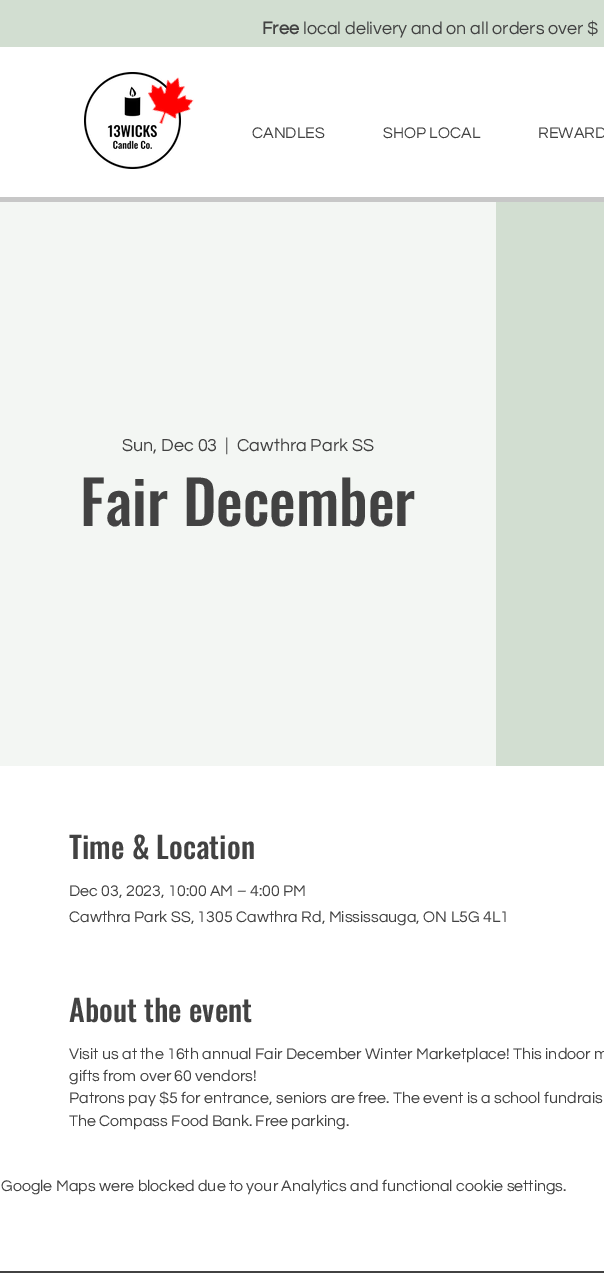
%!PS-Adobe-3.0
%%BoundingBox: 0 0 604 1288
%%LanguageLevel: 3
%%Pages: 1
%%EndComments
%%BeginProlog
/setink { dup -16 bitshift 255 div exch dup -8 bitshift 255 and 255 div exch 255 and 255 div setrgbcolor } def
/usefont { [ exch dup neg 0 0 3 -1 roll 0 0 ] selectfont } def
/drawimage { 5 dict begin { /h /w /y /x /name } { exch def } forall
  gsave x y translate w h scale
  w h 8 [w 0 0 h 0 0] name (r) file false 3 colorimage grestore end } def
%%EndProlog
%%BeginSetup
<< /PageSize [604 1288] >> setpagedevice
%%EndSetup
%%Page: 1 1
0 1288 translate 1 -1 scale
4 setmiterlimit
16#FFFFFF setink
0 0 604 1288 rectfill
16#D2DED1 setink
0 0 604 47 rectfill
/Questrial-Bold 18 usefont
16#424242 setink
262 34 moveto (Free) show
/Questrial-Regular 18 usefont
303 34 moveto (local delivery and on all orders over $) show
(img1.raw) 84 72 97 97 drawimage
(img2.raw) 148 77 46 47 drawimage
/Questrial-Regular 16 usefont
[
    [(CANDLES) 252 138]
    [(SHOP LOCAL) 383 138]
    [(REWARD) 538 138]
] { aload pop moveto show } forall
16#C7C7C7 setink
0 197 604 5 rectfill
16#F3F6F3 setink
0 202 496 564 rectfill
/Questrial-Regular 18 usefont
16#424242 setink
[
    [(Sun, Dec 03) 122 451]
    [(|) 225 451]
    [(Cawthra Park SS) 237 451]
] { aload pop moveto show } forall
/Oswald-Medium 60 usefont
80 526 moveto (Fair December) show
16#D2DED1 setink
496 202 108 564 rectfill
/Oswald-Medium 30 usefont
16#424242 setink
69 859 moveto (Time & Location) show
/Questrial-Regular 16 usefont
69 896 moveto (Dec 03, 2023, 10:00 AM – 4:00 PM) show
69 922 moveto (Cawthra Park SS, 1305 Cawthra Rd, Mississauga, ON L5G 4L1) show
/Oswald-Medium 30 usefont
69 1022 moveto (About the event) show
/Questrial-Regular 16 usefont
[
    [(Visit us at the 16th annual Fair December Winter Marketplace! This indoor m) 69 1059]
    [(gifts from over 60 vendors!) 69 1081]
    [(Patrons pay $5 for entrance, seniors are free. The event is a school fundrais) 69 1103]
    [(The Compass Food Bank. Free parking.) 69 1126]
    [(Google Maps were blocked due to your Analytics and functional cookie settings.) 1 1191]
] { aload pop moveto show } forall
0 1271 604 2 rectfill
showpage
%%EOF
